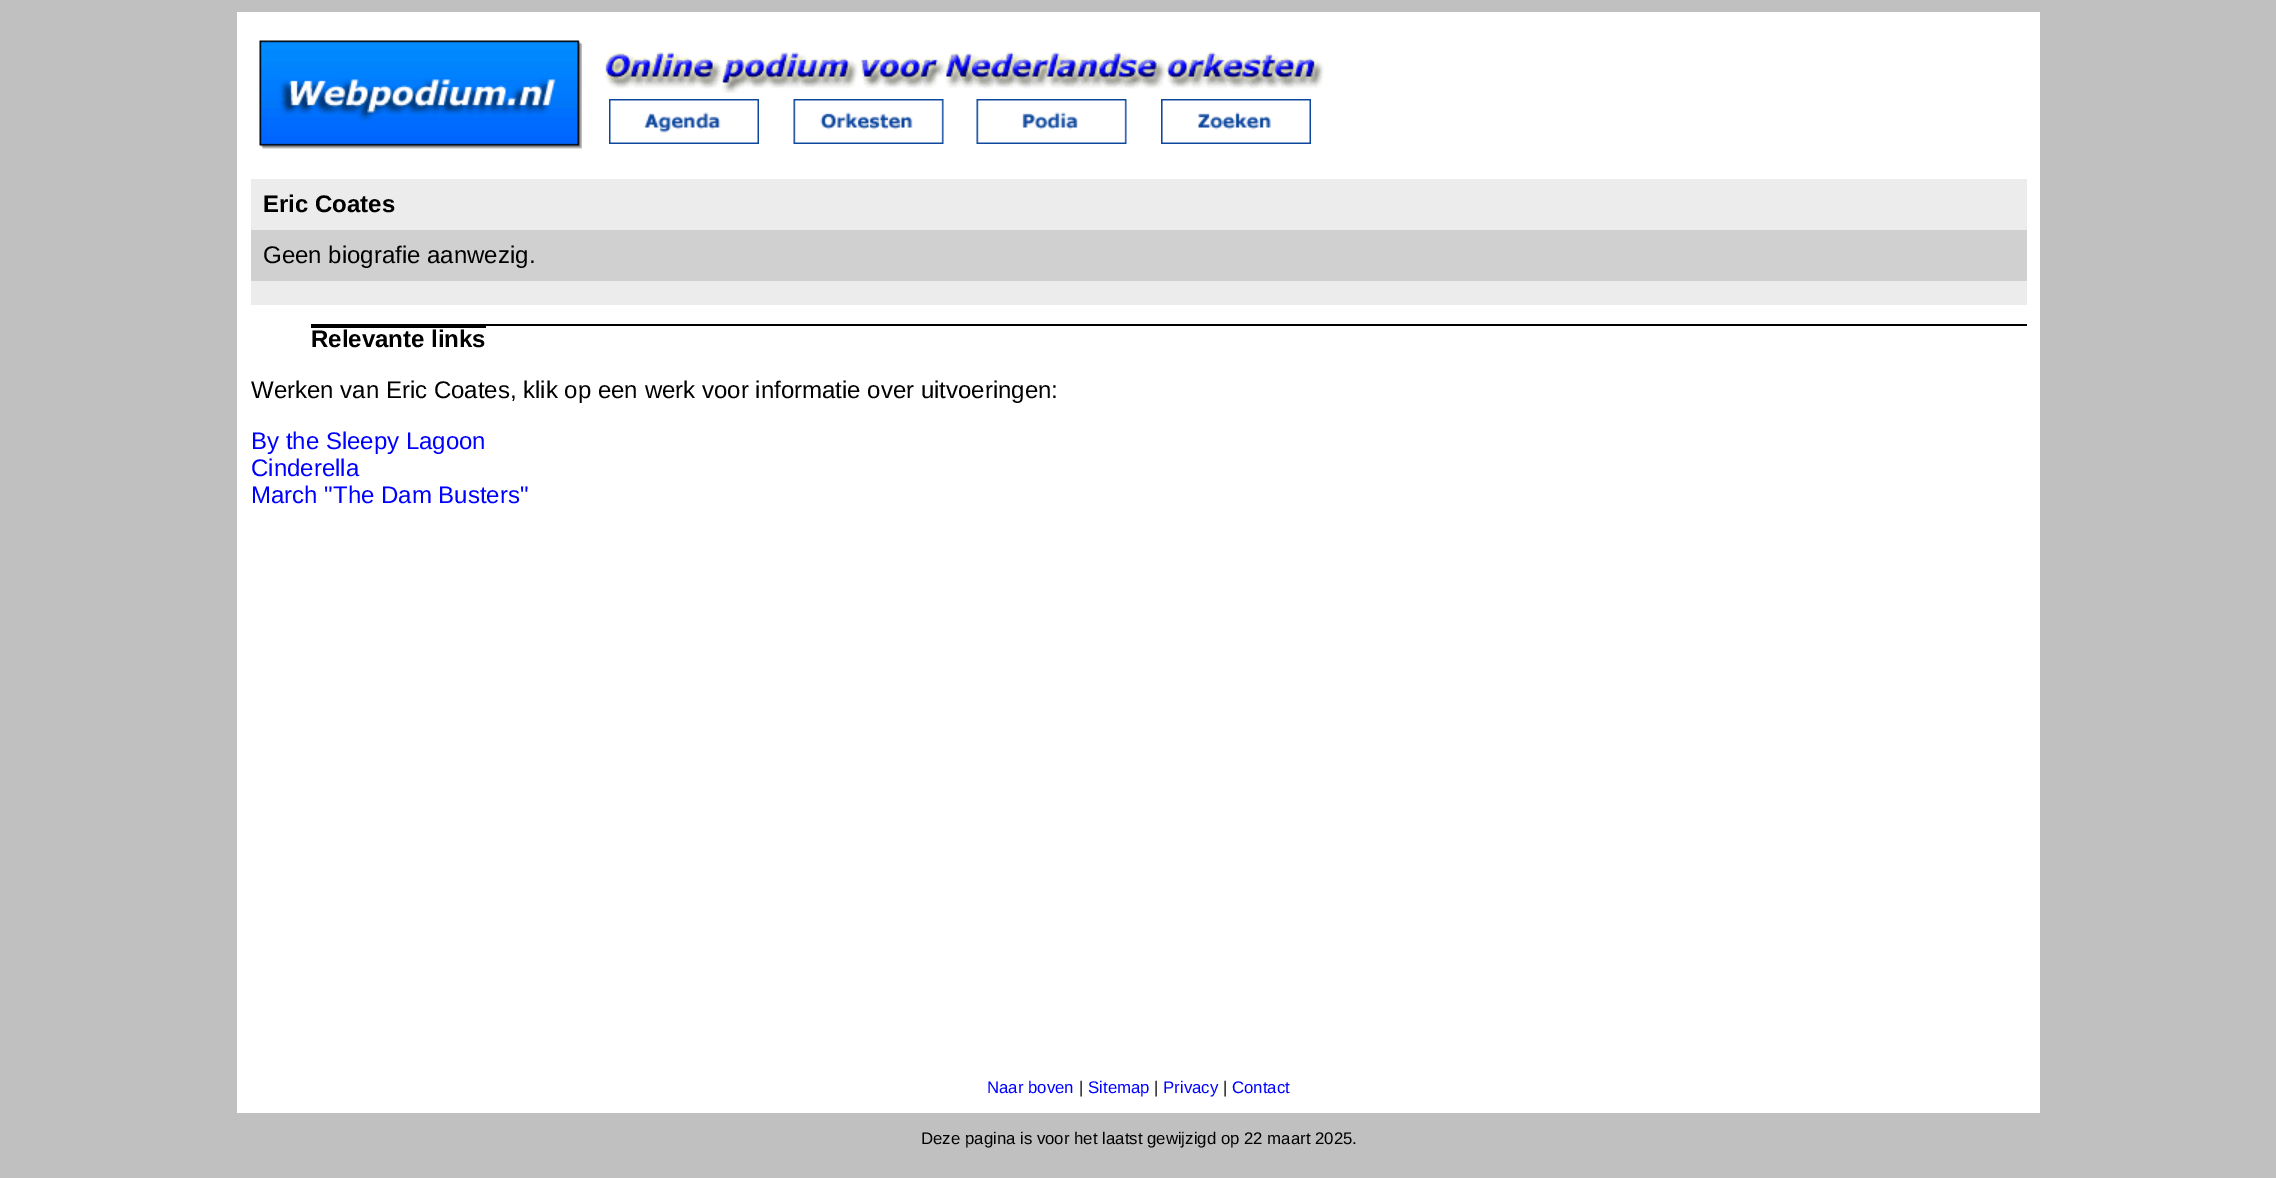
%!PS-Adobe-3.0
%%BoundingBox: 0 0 2276 1178
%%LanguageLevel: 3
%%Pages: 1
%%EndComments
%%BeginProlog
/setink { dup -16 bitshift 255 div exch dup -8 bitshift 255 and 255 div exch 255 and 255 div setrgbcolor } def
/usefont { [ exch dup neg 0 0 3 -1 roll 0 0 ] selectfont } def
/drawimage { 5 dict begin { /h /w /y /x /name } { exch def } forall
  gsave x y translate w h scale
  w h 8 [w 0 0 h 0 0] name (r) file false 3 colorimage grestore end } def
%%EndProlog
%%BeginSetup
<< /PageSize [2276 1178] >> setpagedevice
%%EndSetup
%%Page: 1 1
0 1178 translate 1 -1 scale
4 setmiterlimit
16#C0C0C0 setink
0 0 2276 1178 rectfill
16#FFFFFF setink
237 12 1803 1101 rectfill
(img1.raw) 259 40 323 109 drawimage
(img2.raw) 604 52 720 41 drawimage
(img3.raw) 609 99 150 45 drawimage
(img4.raw) 793 99 151 45 drawimage
(img5.raw) 976 99 151 45 drawimage
(img6.raw) 1161 99 150 45 drawimage
16#ECECEC setink
251 179 1776 51 rectfill
/LiberationSans-Bold 24 usefont
16#000000 setink
263 212 moveto (Eric Coates) show
16#D0D0D0 setink
251 230 1776 51 rectfill
/LiberationSans-Regular 24 usefont
16#000000 setink
263 263 moveto (Geen biografie aanwezig.) show
16#ECECEC setink
251 281 1776 24 rectfill
16#000000 setink
311 324 1716 2 rectfill
/LiberationSans-Bold 24 usefont
311 347 moveto (Relevante links) show
311 326 175 2 rectfill
/LiberationSans-Regular 24 usefont
251 398 moveto (Werken van Eric Coates, klik op een werk voor informatie over uitvoeringen:) show
16#0000FF setink
[
    [(By the Sleepy Lagoon) 251 449]
    [(Cinderella) 251 476]
    [(March "The Dam Busters") 251 503]
] { aload pop moveto show } forall
/LiberationSans-Regular 16.8 usefont
987 1093 moveto (Naar boven) show
16#000000 setink
1079 1093 moveto (|) show
16#0000FF setink
1088 1093 moveto (Sitemap) show
16#000000 setink
1154 1093 moveto (|) show
16#0000FF setink
1163 1093 moveto (Privacy) show
16#000000 setink
1223 1093 moveto (|) show
16#0000FF setink
1232 1093 moveto (Contact) show
16#000000 setink
921 1144 moveto (Deze pagina is voor het laatst gewijzigd op 22 maart 2025.) show
showpage
%%EOF
